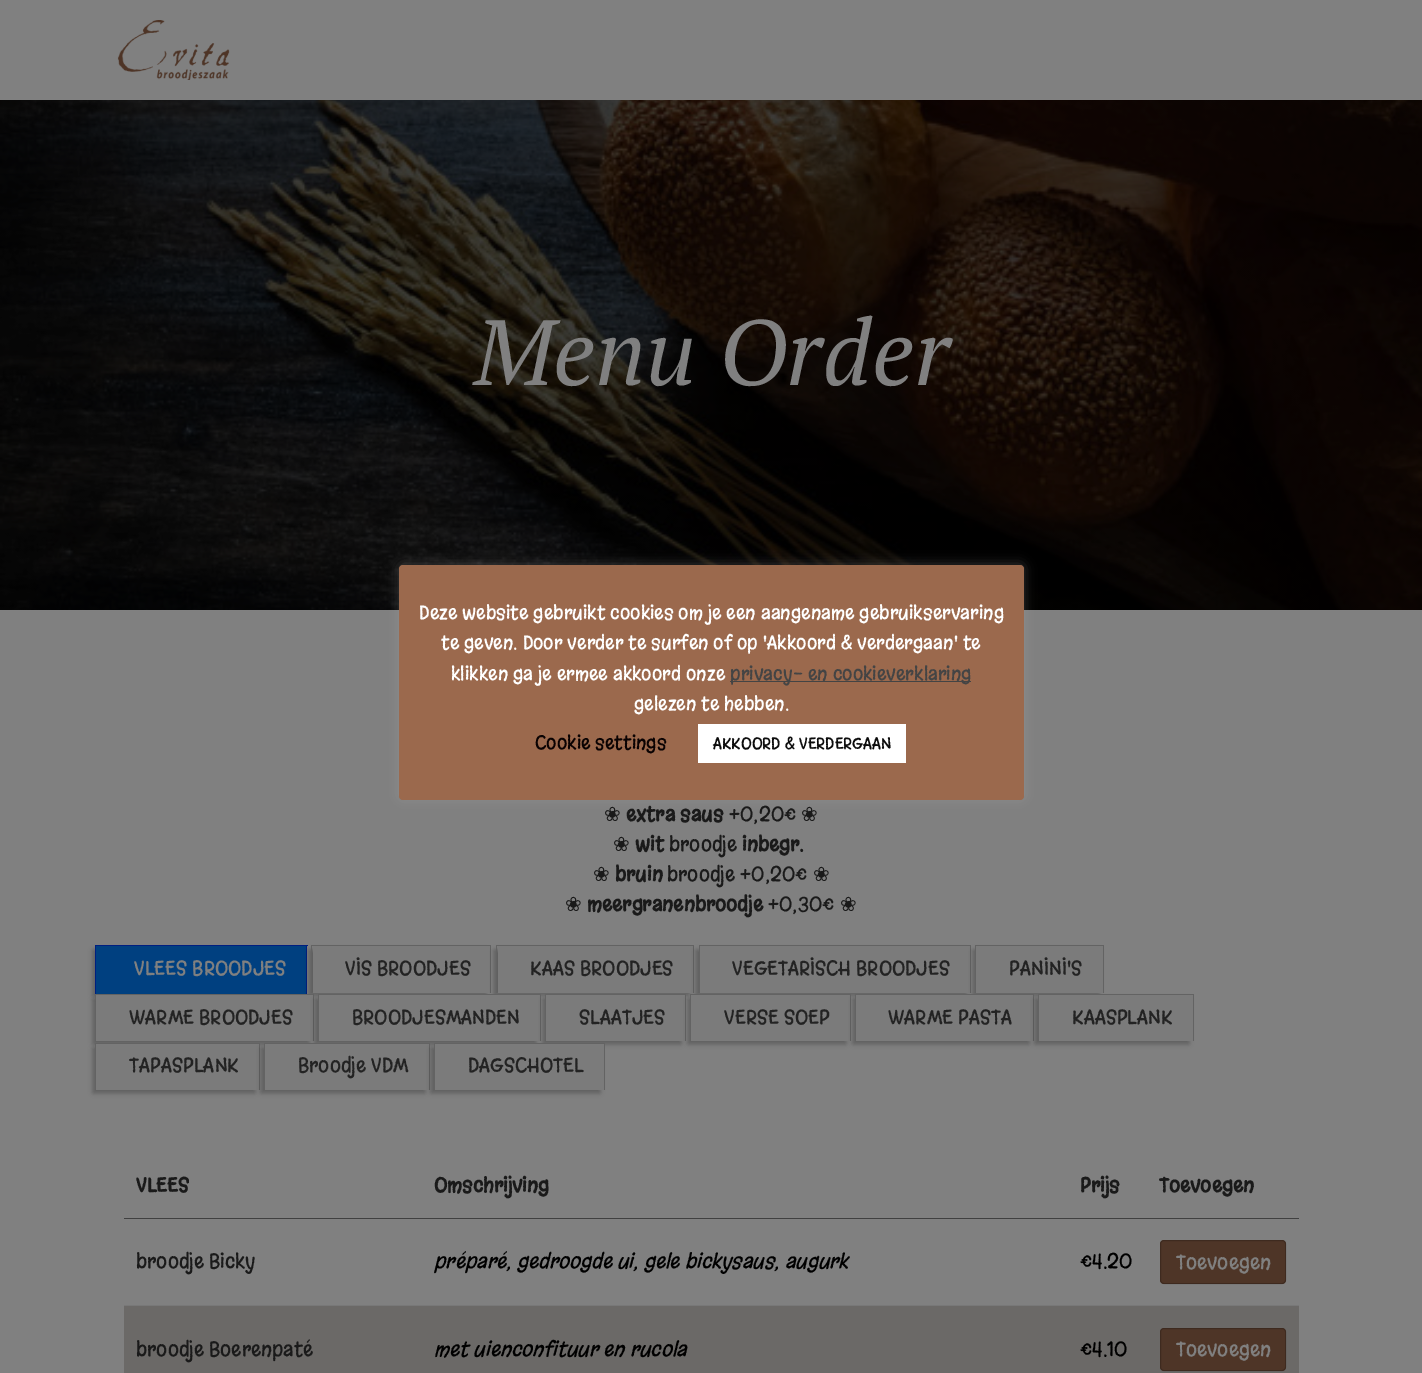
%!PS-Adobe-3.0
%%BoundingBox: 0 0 1422 1373
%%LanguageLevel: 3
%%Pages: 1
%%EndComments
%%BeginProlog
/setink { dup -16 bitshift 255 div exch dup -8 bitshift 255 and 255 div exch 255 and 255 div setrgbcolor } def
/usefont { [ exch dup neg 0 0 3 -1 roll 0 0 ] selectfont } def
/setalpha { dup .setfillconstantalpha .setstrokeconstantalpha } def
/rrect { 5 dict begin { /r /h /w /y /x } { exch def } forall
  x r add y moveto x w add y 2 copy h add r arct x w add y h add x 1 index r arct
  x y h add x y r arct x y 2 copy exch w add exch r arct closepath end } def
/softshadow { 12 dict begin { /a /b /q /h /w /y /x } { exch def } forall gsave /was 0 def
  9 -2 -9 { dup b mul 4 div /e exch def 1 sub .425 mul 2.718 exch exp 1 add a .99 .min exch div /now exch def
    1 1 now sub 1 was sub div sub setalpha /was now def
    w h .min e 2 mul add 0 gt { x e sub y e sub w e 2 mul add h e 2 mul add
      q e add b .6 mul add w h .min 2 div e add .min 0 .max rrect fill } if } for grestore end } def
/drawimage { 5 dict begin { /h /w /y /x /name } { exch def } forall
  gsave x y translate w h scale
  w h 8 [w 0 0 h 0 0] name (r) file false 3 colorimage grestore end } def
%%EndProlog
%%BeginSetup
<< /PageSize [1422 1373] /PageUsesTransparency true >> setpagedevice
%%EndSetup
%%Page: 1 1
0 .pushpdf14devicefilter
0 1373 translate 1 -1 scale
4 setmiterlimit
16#808080 setink
0 0 1422 1373 rectfill
(img1.raw) 117 20 113 60 drawimage
(img2.raw) 0 100 1422 510 drawimage
/PTSerif-Italic 92.5 usefont
474 385 moveto (Menu Order) show
16#ACABAB setink
399 564 625 235 4 6 0.3 softshadow
16#9B694D setink
399 565 625 235 4 rrect fill
/Margarine-Regular 18.75 usefont
16#FFFFFF setink
[
    [(Deze website gebruikt cookies om je een aangename gebruikservaring) 419 619]
    [(te geven. Door verder te surfen of op 'Akkoord & verdergaan' te) 441 649]
    [(klikken ga je ermee akkoord onze) 451 680]
] { aload pop moveto show } forall
16#444444 setink
730 681 241 1 rectfill
730 680 moveto (privacy- en cookieverklaring) show
16#FFFFFF setink
634 710 moveto (gelezen te hebben.) show
16#0A0202 setink
535 749 moveto (Cookie settings) show
16#FFFFFF setink
698 724 208 39 rectfill
/Margarine-Regular 16.25 usefont
16#0C0C0C setink
713 749 moveto (AKKOORD & VERDERGAAN) show
/DejaVuSans-Regular 20 usefont
16#1A1A1A setink
604 821 moveto (❀) show
/Margarine-Bold 20 usefont
626 821 moveto (extra saus) show
/Margarine-Regular 20 usefont
729 821 moveto (+0,20€) show
/DejaVuSans-Regular 20 usefont
801 821 moveto (❀) show
613 851 moveto (❀) show
/Margarine-Bold 20 usefont
635 851 moveto (wit) show
/Margarine-Regular 20 usefont
669 851 moveto (broodje) show
/Margarine-Bold 20 usefont
742 851 moveto (inbegr.) show
/DejaVuSans-Regular 20 usefont
593 881 moveto (❀) show
/Margarine-Bold 20 usefont
615 881 moveto (bruin) show
/Margarine-Regular 20 usefont
667 881 moveto (broodje +0,20€) show
/DejaVuSans-Regular 20 usefont
813 881 moveto (❀) show
565 911 moveto (❀) show
/Margarine-Bold 20 usefont
587 911 moveto (meergranenbroodje) show
/Margarine-Regular 20 usefont
768 911 moveto (+0,30€) show
/DejaVuSans-Regular 20 usefont
840 911 moveto (❀) show
16#000000 setink
93 950 210 46 0 2.5 0.29 softshadow
[
    [96 946 210 48 16#004080]
    [95 945 213 1 16#001F80]
    [306 945 1 49 16#001F80]
    [95 945 1 49 16#001F80]
] { aload pop setink rectfill } forall
/Margarine-Regular 20 usefont
16#808080 setink
134 975 moveto (VLEES BROODJES) show
16#000000 setink
309 950 177 45 0 2.5 0.29 softshadow
[
    [313 946 177 47 16#7B7B7B]
    [311 945 180 1 16#636363]
    [490 945 1 48 16#636363]
    [311 945 1 48 16#636363]
] { aload pop setink rectfill } forall
16#232323 setink
345 975 moveto (VIS BROODJES) show
16#000000 setink
494 950 195 45 0 2.5 0.29 softshadow
[
    [498 946 195 47 16#7B7B7B]
    [496 945 198 1 16#636363]
    [693 945 1 48 16#636363]
    [496 945 1 48 16#636363]
] { aload pop setink rectfill } forall
16#232323 setink
530 975 moveto (KAAS BROODJES) show
16#000000 setink
696 950 270 45 0 2.5 0.29 softshadow
[
    [700 946 270 47 16#7B7B7B]
    [699 945 272 1 16#636363]
    [970 945 1 48 16#636363]
    [699 945 1 48 16#636363]
] { aload pop setink rectfill } forall
16#232323 setink
732 975 moveto (VEGETARISCH BROODJES) show
16#000000 setink
973 950 126 45 0 2.5 0.29 softshadow
[
    [976 946 127 47 16#7B7B7B]
    [975 945 129 1 16#636363]
    [1103 945 1 48 16#636363]
    [975 945 1 48 16#636363]
] { aload pop setink rectfill } forall
16#232323 setink
1009 975 moveto (PANINI'S) show
16#000000 setink
93 999 216 45 0 2.5 0.29 softshadow
[
    [96 995 217 46 16#7B7B7B]
    [95 994 219 1 16#636363]
    [313 994 1 47 16#636363]
    [95 994 1 7 16#636363]
] { aload pop setink rectfill } forall
16#232323 setink
129 1024 moveto (WARME BROODJES) show
16#000000 setink
315 999 221 45 0 2.5 0.29 softshadow
[
    [319 995 221 46 16#7B7B7B]
    [318 994 223 1 16#636363]
    [540 994 1 47 16#636363]
    [318 994 1 47 16#636363]
] { aload pop setink rectfill } forall
16#232323 setink
352 1024 moveto (BROODJESMANDEN) show
16#000000 setink
543 999 138 45 0 2.5 0.29 softshadow
[
    [546 995 139 46 16#7B7B7B]
    [545 994 141 1 16#636363]
    [685 994 1 47 16#636363]
    [545 994 1 7 16#636363]
] { aload pop setink rectfill } forall
16#232323 setink
579 1024 moveto (SLAATJES) show
16#000000 setink
688 999 158 45 0 2.5 0.29 softshadow
[
    [691 995 159 46 16#7B7B7B]
    [690 994 161 1 16#636363]
    [850 994 1 47 16#636363]
    [690 994 1 7 16#636363]
] { aload pop setink rectfill } forall
16#232323 setink
724 1024 moveto (VERSE SOEP) show
16#000000 setink
853 999 176 45 0 2.5 0.29 softshadow
[
    [856 995 177 46 16#7B7B7B]
    [855 994 179 1 16#636363]
    [1033 994 1 47 16#636363]
    [855 994 1 7 16#636363]
] { aload pop setink rectfill } forall
16#232323 setink
888 1024 moveto (WARME PASTA) show
16#000000 setink
1035 999 154 45 0 2.5 0.29 softshadow
[
    [1039 995 154 46 16#7B7B7B]
    [1038 994 156 1 16#636363]
    [1193 994 1 47 16#636363]
    [1038 994 1 47 16#636363]
] { aload pop setink rectfill } forall
16#232323 setink
1072 1024 moveto (KAASPLANK) show
16#000000 setink
93 1048 162 45 0 2.5 0.29 softshadow
[
    [96 1044 163 46 16#7B7B7B]
    [95 1043 165 1 16#636363]
    [259 1043 1 47 16#636363]
    [95 1043 1 7 16#636363]
] { aload pop setink rectfill } forall
16#232323 setink
129 1072 moveto (TAPASPLANK) show
16#000000 setink
261 1048 164 45 0 2.5 0.29 softshadow
[
    [265 1044 164 46 16#7B7B7B]
    [264 1043 166 1 16#636363]
    [429 1043 1 47 16#636363]
    [264 1043 1 47 16#636363]
] { aload pop setink rectfill } forall
16#232323 setink
298 1072 moveto (Broodje VDM) show
16#000000 setink
431 1048 169 45 0 2.5 0.29 softshadow
[
    [435 1044 169 46 16#7B7B7B]
    [434 1043 171 1 16#636363]
    [604 1043 1 47 16#636363]
    [434 1043 1 47 16#636363]
] { aload pop setink rectfill } forall
16#232323 setink
468 1072 moveto (DAGSCHOTEL) show
16#404040 setink
124 1218 1175 1 rectfill
/Margarine-Bold 20 usefont
16#1A1A1A setink
[
    [(VLEES) 136 1192]
    [(Omschrijving) 434 1192]
    [(Prijs) 1080 1192]
    [(Toevoegen) 1159 1192]
] { aload pop moveto show } forall
16#787878 setink
124 1305 1175 1 rectfill
/Margarine-Regular 20 usefont
16#1A1A1A setink
136 1268 moveto (broodje Bicky) show
/Margarine-Italic 20 usefont
16#000000 setink
434 1268 moveto (préparé, gedroogde ui, gele bickysaus, augurk) show
/Margarine-Regular 20 usefont
1080 1268 moveto (€4.20) show
16#4E3527 setink
1160 1240 126 44 4 rrect fill
0.2 setalpha
16#000000 setink
1160.5 1240.5 125 43 3.5 rrect stroke
1 setalpha
16#808080 setink
1176 1269 moveto (Toevoegen) show
16#6B6967 setink
124 1306 1175 67 rectfill
16#1A1A1A setink
136 1356 moveto (broodje Boerenpaté) show
/Margarine-Italic 20 usefont
16#000000 setink
434 1356 moveto (met uienconfituur en rucola) show
/Margarine-Regular 20 usefont
1080 1356 moveto (€4.10) show
16#4E3527 setink
1160 1328 126 43 4 rrect fill
0.2 setalpha
16#000000 setink
1160.5 1328.5 125 42 3.5 rrect stroke
1 setalpha
16#808080 setink
1176 1356 moveto (Toevoegen) show
.poppdf14devicefilter showpage
%%EOF
